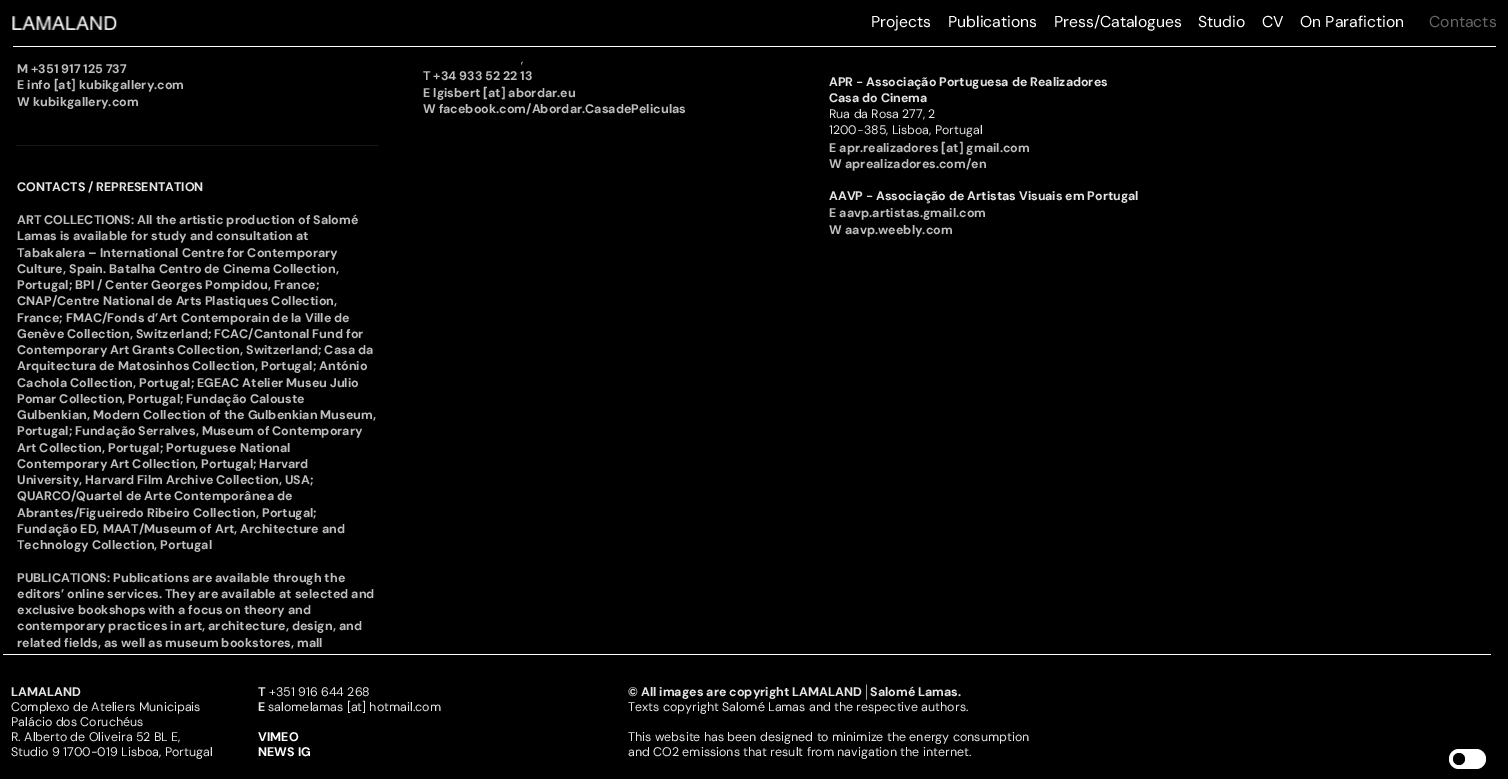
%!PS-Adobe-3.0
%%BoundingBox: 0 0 1508 779
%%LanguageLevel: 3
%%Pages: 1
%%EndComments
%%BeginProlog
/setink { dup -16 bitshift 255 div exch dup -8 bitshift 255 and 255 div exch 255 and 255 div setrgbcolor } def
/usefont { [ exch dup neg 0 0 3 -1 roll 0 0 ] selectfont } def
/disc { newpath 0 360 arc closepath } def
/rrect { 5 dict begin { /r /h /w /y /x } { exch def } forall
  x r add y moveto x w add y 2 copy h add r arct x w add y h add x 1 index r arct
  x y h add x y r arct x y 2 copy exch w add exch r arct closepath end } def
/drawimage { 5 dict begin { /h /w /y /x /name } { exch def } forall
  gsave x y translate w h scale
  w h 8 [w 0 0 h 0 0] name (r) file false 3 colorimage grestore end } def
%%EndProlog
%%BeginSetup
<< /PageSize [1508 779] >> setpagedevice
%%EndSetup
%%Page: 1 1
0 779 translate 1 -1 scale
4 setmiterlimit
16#000000 setink
0 0 1508 779 rectfill
16#FFFFFF setink
13 46 1483 1 rectfill
(img1.raw) 12 16 105 14 drawimage
/DMSans-Regular 15.75 usefont
[
    [(Projects) 871 27]
    [(Publications) 948 27]
    [(Press/Catalogues) 1054 27]
    [(Studio) 1198 27]
    [(CV) 1262 27]
    [(On Parafiction) 1300 27]
] { aload pop moveto show } forall
16#666666 setink
1429 27 moveto (Contacts) show
/DMSans-Bold 12.5 usefont
16#BEBEBE setink
[
    [(M +351 917 125 737) 17 73]
    [(E info [at] kubikgallery.com) 17 89]
    [(W) 17 106]
    [(kubikgallery.com) 33 106]
] { aload pop moveto show } forall
16#191919 setink
16 145 362 1 rectfill
/DMSans-Bold 12.4 usefont
16#E6E6E6 setink
17 191 moveto (CONTACTS / REPRESENTATION) show
/DMSans-Bold 12.5 usefont
16#BEBEBE setink
[
    [(ART COLLECTIONS: All the artistic production of Salomé) 17 224]
    [(Lamas is available for study and consultation at) 17 240]
    [(Tabakalera – International Centre for Contemporary) 17 257]
    [(Culture, Spain. Batalha Centro de Cinema Collection,) 17 273]
    [(Portugal; BPI / Center Georges Pompidou, France;) 17 289]
    [(CNAP/Centre National de Arts Plastiques Collection,) 17 305]
    [(France; FMAC/Fonds d’Art Contemporain de la Ville de) 17 322]
    [(Genève Collection, Switzerland; FCAC/Cantonal Fund for) 17 338]
    [(Contemporary Art Grants Collection, Switzerland; Casa da) 17 354]
    [(Arquitectura de Matosinhos Collection, Portugal; António) 17 370]
    [(Cachola Collection, Portugal; EGEAC Atelier Museu Julio) 17 387]
    [(Pomar Collection, Portugal; Fundação Calouste) 17 403]
    [(Gulbenkian, Modern Collection of the Gulbenkian Museum,) 17 419]
    [(Portugal; Fundação Serralves, Museum of Contemporary) 17 435]
    [(Art Collection, Portugal; Portuguese National) 17 452]
    [(Contemporary Art Collection, Portugal; Harvard) 17 468]
    [(University, Harvard Film Archive Collection, USA;) 17 484]
    [(QUARCO/Quartel de Arte Contemporânea de) 17 500]
    [(Abrantes/Figueiredo Ribeiro Collection, Portugal;) 17 517]
    [(Fundação ED, MAAT/Museum of Art, Architecture and) 17 533]
    [(Technology Collection, Portugal) 17 549]
    [(PUBLICATIONS: Publications are available through the) 17 582]
    [(editors’ online services. They are available at selected and) 17 598]
    [(exclusive bookshops with a focus on theory and) 17 614]
    [(contemporary practices in art, architecture, design, and) 17 630]
    [(related fields, as well as museum bookstores, mall) 17 647]
] { aload pop moveto show } forall
/DMSans-Regular 12.4 usefont
16#E6E6E6 setink
521 63 moveto (,) show
/DMSans-Bold 12.5 usefont
16#BEBEBE setink
[
    [(T +34 933 52 22 13) 423 80]
    [(E lgisbert [at] abordar.eu) 423 97]
    [(W f) 423 113]
    [(acebook.com/Abordar.CasadePeliculas) 443 113]
] { aload pop moveto show } forall
/DMSans-Bold 12.4 usefont
16#E6E6E6 setink
829 86 moveto (APR - Associação Portuguesa de Realizadores) show
829 102 moveto (Casa do Cinema) show
/DMSans-Regular 12.4 usefont
829 118 moveto (Rua da Rosa 277, 2) show
829 134 moveto (1200-385, Lisboa, Portugal) show
/DMSans-Bold 12.5 usefont
16#BEBEBE setink
[
    [(E apr.realizadores [at] gmail.com) 829 152]
    [(W) 829 168]
    [(aprealizadores.com/en) 845 168]
] { aload pop moveto show } forall
/DMSans-Bold 12.4 usefont
16#E6E6E6 setink
829 200 moveto (AAVP - Associação de Artistas Visuais em Portugal) show
/DMSans-Bold 12.5 usefont
16#BEBEBE setink
[
    [(E aavp.artistas.gmail.com) 829 217]
    [(W) 829 234]
    [(aavp.weebly.com) 845 234]
] { aload pop moveto show } forall
16#FFFFFF setink
3 654 1488 1 rectfill
16#E6E6E6 setink
11 696 moveto (LAMALAND) show
/DMSans-Regular 12.5 usefont
[
    [(Complexo de Ateliers Municipais) 11 711]
    [(Palácio dos Coruchéus) 11 726]
    [(R. Alberto de Oliveira 52 BL E,) 11 741]
    [(Studio 9 1700-019 Lisboa, Portugal) 11 756]
] { aload pop moveto show } forall
/DMSans-Bold 12.5 usefont
258 696 moveto (T) show
/DMSans-Regular 12.5 usefont
269 696 moveto (+351 916 644 268) show
/DMSans-Bold 12.5 usefont
258 711 moveto (E) show
/DMSans-Regular 12.5 usefont
268 711 moveto (salomelamas [at] hotmail.com) show
/DMSans-Bold 12.5 usefont
16#FFFFFF setink
258 741 moveto (VIMEO) show
258 756 moveto (NEWS IG) show
16#E6E6E6 setink
628 696 moveto (© All images are copyright LAMALAND) show
/LiberationSerif-Bold 12.5 usefont
862 696 moveto (│) show
/DMSans-Bold 12.5 usefont
870 696 moveto (Salomé Lamas.) show
/DMSans-Regular 12.5 usefont
[
    [(Texts copyright Salomé Lamas and the respective authors.) 628 711]
    [(This website has been designed to minimize the energy consumption) 628 741]
    [(and CO2 emissions that result from navigation the internet.) 628 756]
] { aload pop moveto show } forall
16#FFFFFF setink
1449 749 37 20 10 rrect fill
16#000000 setink
1459 759 6 disc fill
showpage
%%EOF
